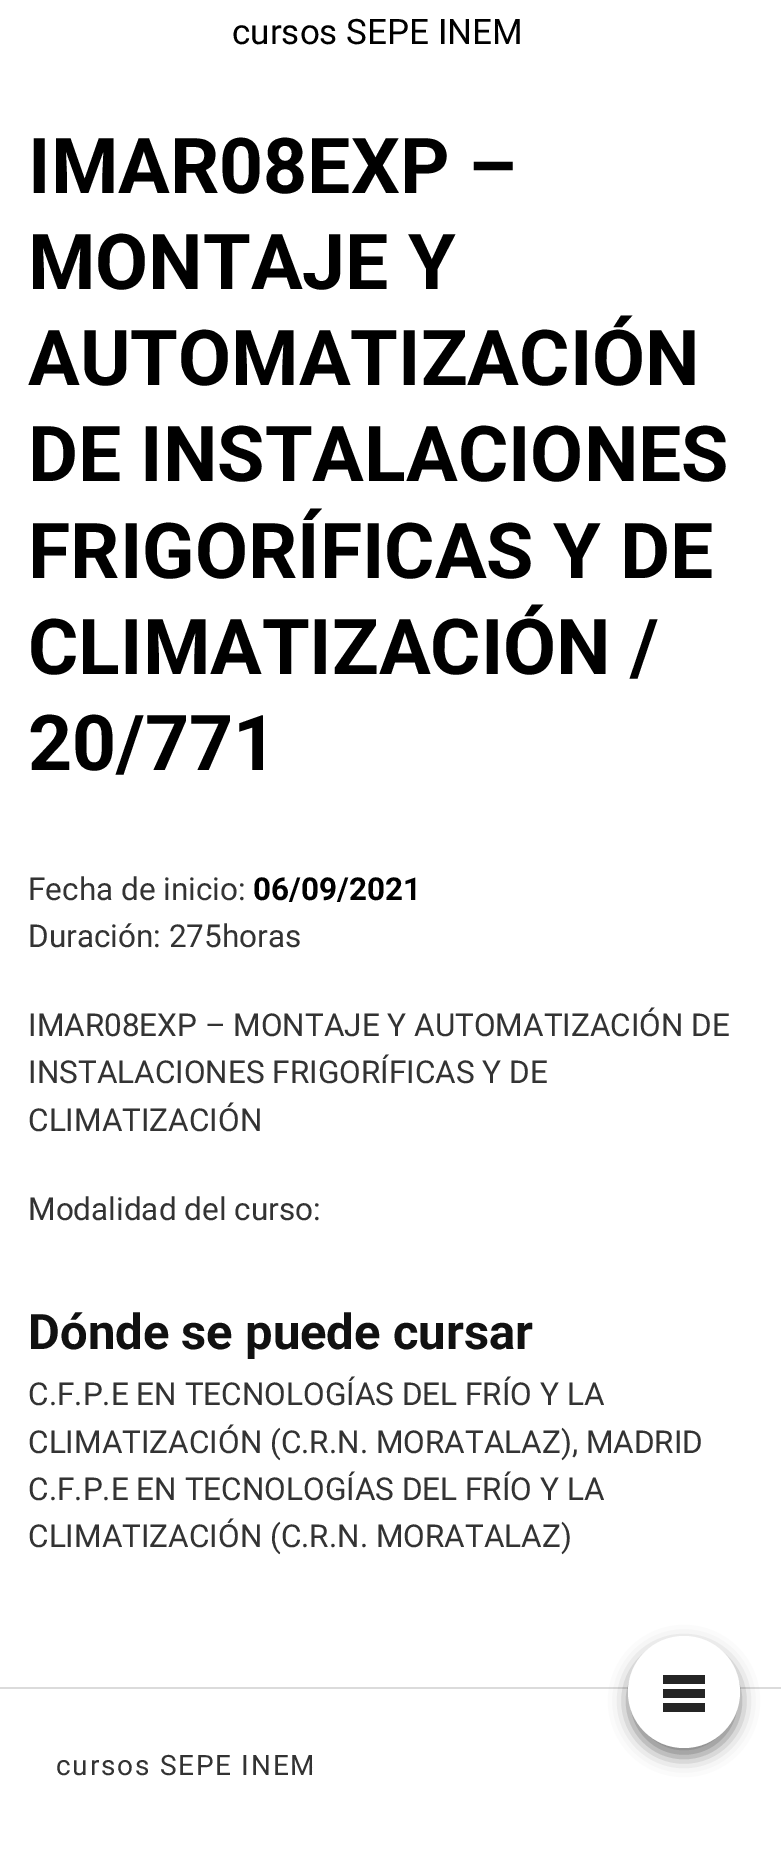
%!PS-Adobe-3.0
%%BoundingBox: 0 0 781 1860
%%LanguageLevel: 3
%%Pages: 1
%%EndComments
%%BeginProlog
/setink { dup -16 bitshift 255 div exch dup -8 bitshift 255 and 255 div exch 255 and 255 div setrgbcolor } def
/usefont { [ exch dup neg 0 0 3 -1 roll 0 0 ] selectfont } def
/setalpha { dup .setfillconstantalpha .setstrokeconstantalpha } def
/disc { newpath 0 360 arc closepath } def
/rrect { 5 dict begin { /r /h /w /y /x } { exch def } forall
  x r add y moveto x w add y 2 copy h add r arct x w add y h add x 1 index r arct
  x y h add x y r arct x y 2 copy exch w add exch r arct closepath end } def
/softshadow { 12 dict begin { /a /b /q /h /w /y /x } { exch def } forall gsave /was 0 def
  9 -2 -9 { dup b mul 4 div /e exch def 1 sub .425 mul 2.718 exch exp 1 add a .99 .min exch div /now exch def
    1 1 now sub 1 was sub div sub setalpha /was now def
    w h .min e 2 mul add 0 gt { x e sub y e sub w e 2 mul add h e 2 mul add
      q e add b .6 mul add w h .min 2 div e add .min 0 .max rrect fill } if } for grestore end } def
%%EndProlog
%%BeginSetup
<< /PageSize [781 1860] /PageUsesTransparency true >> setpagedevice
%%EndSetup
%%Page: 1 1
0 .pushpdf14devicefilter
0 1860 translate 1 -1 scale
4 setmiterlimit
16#FFFFFF setink
0 0 781 1860 rectfill
/Roboto-Regular 35 usefont
16#000000 setink
232 44 moveto (cursos SEPE INEM) show
16#DBDBDB setink
0 1687 781 2 rectfill
16#000000 setink
628 1645 112 112 56 9 0.5 softshadow
16#FFFFFF setink
684 1692 56 disc fill
[
    [663 1689 42 9 16#252525]
    [663 1675 42 9 16#252525]
    [663 1703 42 9 16#252525]
] { aload pop setink rectfill } forall
/Roboto-Bold 77 usefont
16#000000 setink
[
    [(IMAR08EXP –) 28 193]
    [(MONTAJE Y) 28 289]
    [(AUTOMATIZACIÓN) 28 385]
    [(DE INSTALACIONES) 28 481]
    [(FRIGORÍFICAS Y DE) 28 578]
    [(CLIMATIZACIÓN /) 28 674]
    [(20/771) 28 770]
] { aload pop moveto show } forall
/Roboto-Regular 31.5 usefont
16#333333 setink
28 900 moveto (Fecha de inicio:) show
/Roboto-Bold 31.5 usefont
16#000000 setink
253 900 moveto (06/09/2021) show
/Roboto-Regular 31.5 usefont
16#333333 setink
[
    [(Duración: 275horas) 28 947]
    [(IMAR08EXP – MONTAJE Y AUTOMATIZACIÓN DE) 28 1036]
    [(INSTALACIONES FRIGORÍFICAS Y DE) 28 1083]
    [(CLIMATIZACIÓN) 28 1131]
    [(Modalidad del curso:) 28 1220]
] { aload pop moveto show } forall
/Roboto-Bold 49 usefont
16#111111 setink
28 1349 moveto (Dónde se puede cursar) show
/Roboto-Regular 31.5 usefont
16#333333 setink
[
    [(C.F.P.E EN TECNOLOGÍAS DEL FRÍO Y LA) 28 1405]
    [(CLIMATIZACIÓN \(C.R.N. MORATALAZ\), MADRID) 28 1453]
    [(C.F.P.E EN TECNOLOGÍAS DEL FRÍO Y LA) 28 1500]
    [(CLIMATIZACIÓN \(C.R.N. MORATALAZ\)) 28 1547]
] { aload pop moveto show } forall
/Roboto-Regular 28 usefont
56 1775 moveto 1.75 0 (cursos SEPE INEM) ashow
.poppdf14devicefilter showpage
%%EOF
